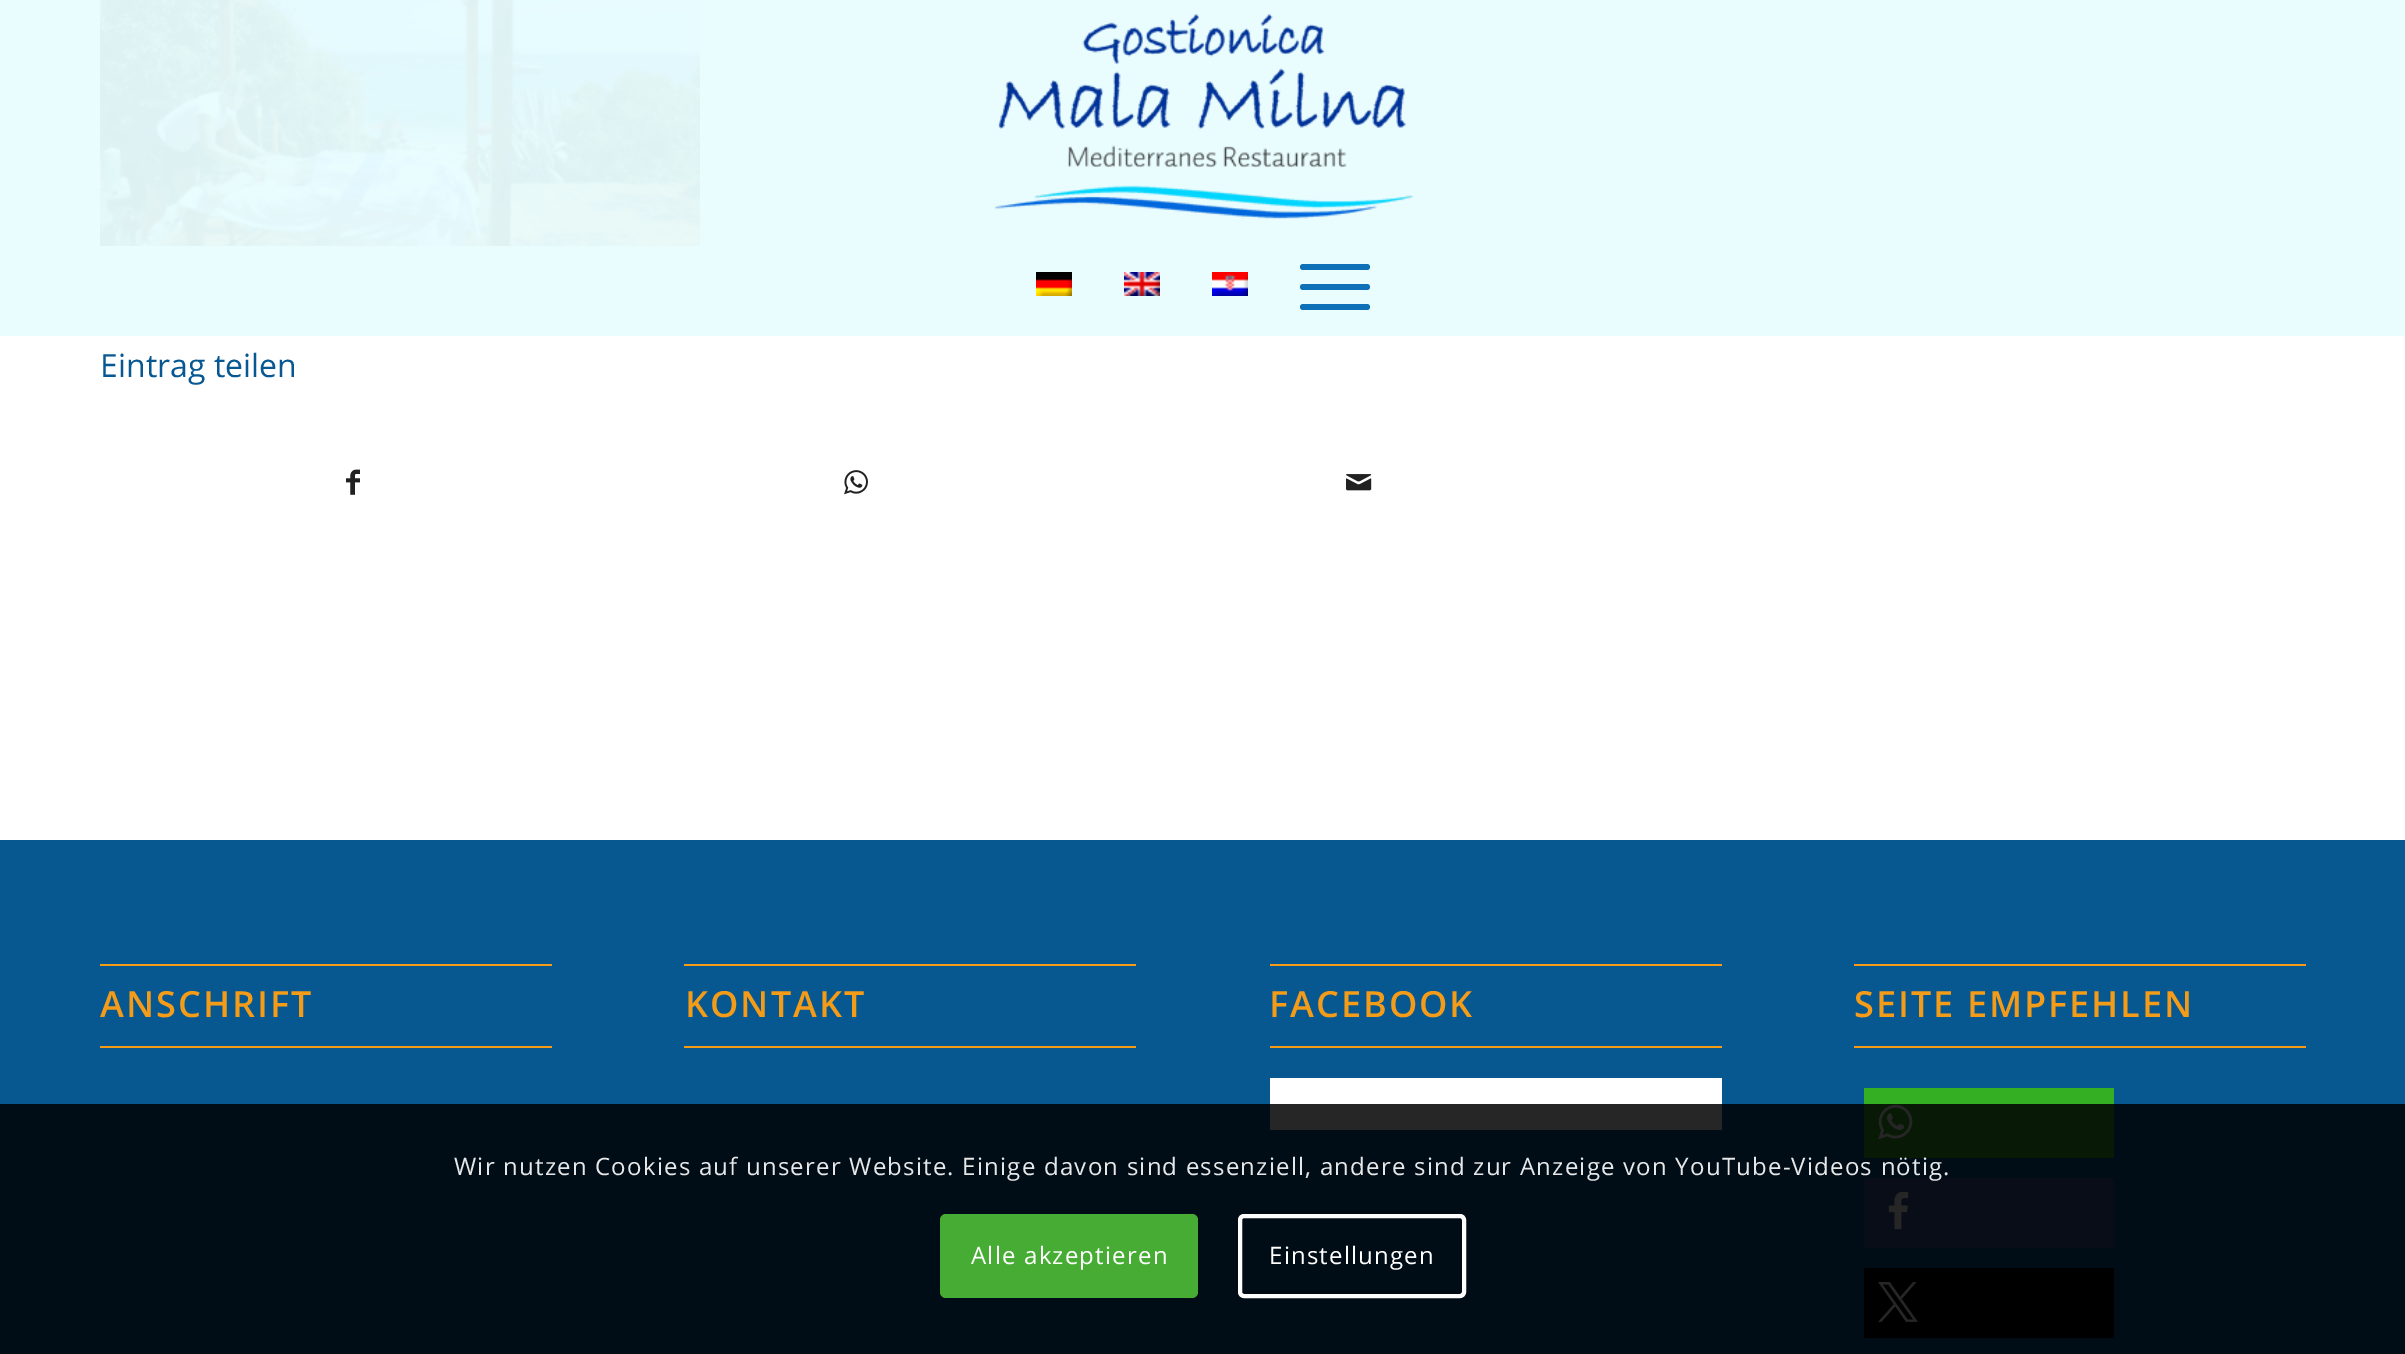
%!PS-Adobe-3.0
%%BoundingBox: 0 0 2405 1354
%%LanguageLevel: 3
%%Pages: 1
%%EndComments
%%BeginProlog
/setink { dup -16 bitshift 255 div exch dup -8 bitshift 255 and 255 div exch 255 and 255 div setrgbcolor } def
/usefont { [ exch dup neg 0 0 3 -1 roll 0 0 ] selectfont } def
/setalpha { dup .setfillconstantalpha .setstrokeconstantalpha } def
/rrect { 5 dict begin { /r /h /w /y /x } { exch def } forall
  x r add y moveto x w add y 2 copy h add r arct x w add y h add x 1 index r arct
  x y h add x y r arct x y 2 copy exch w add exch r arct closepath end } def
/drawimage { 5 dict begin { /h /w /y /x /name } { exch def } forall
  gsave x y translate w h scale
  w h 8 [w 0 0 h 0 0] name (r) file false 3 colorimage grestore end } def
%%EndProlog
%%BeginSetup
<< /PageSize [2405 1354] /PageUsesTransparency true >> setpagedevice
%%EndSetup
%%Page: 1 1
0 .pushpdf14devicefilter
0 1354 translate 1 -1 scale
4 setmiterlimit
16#FFFFFF setink
0 0 2405 1354 rectfill
16#E9FDFF setink
0 0 2405 336 rectfill
(img1.raw) 995 14 418 205 drawimage
(img2.raw) 1036 272 36 24 drawimage
(img3.raw) 1124 272 36 24 drawimage
(img4.raw) 1212 272 36 24 drawimage
16#0E71B8 setink
1300 284 70 6 3 rrect fill
1300 264 70 6 3 rrect fill
1300 304 70 6 3 rrect fill
(img5.raw) 100 0 600 246 drawimage
/OpenSans-Regular 32 usefont
16#075791 setink
100 377 moveto (Eintrag teilen) show
(img6.raw) 346 469 14 26 drawimage
(img7.raw) 844 470 24 25 drawimage
(img8.raw) 1346 474 26 17 drawimage
[
    [0 840 2405 514 16#075791]
    [100 964 452 2 16#F49C18]
    [100 1046 452 2 16#F49C18]
] { aload pop setink rectfill } forall
/OpenSans-SemiBold 36 usefont
100 1017 moveto 2 0 (ANSCHRIFT) ashow
684 964 452 2 rectfill
684 1046 452 2 rectfill
685 1017 moveto 2 0 (KONTAKT) ashow
1270 964 452 2 rectfill
1270 1046 452 2 rectfill
1269 1017 moveto 2 0 (FACEBOOK) ashow
[
    [1270 1078 452 52 16#FFFFFF]
    [1854 964 452 2 16#F49C18]
    [1854 1046 452 2 16#F49C18]
] { aload pop setink rectfill } forall
1854 1017 moveto 2 0 (SEITE EMPFEHLEN) ashow
16#34AF23 setink
1864 1088 250 70 rectfill
(img9.raw) 1878 1104 35 36 drawimage
16#3B5998 setink
1864 1178 250 70 rectfill
(img10.raw) 1888 1191 21 39 drawimage
16#000000 setink
1864 1268 250 70 rectfill
(img11.raw) 1878 1282 40 40 drawimage
0.85 setalpha
0 1104 2405 250 rectfill
/OpenSans-Regular 24 usefont
1 setalpha
16#E6E7E8 setink
454 1175 moveto 1.2 0 (Wir nutzen Cookies auf unserer Website. Einige davon sind essenziell, andere sind zur Anzeige von YouTube-Videos nötig.) ashow
16#46AC34 setink
940 1214 258 84 6 rrect fill
16#FFFFFF setink
971 1264 moveto 1.2 0 (Alle akzeptieren) ashow
4 setlinewidth
1240 1216 224 80 4 rrect stroke
1269 1264 moveto 1.2 0 (Einstellungen) ashow
.poppdf14devicefilter showpage
%%EOF
